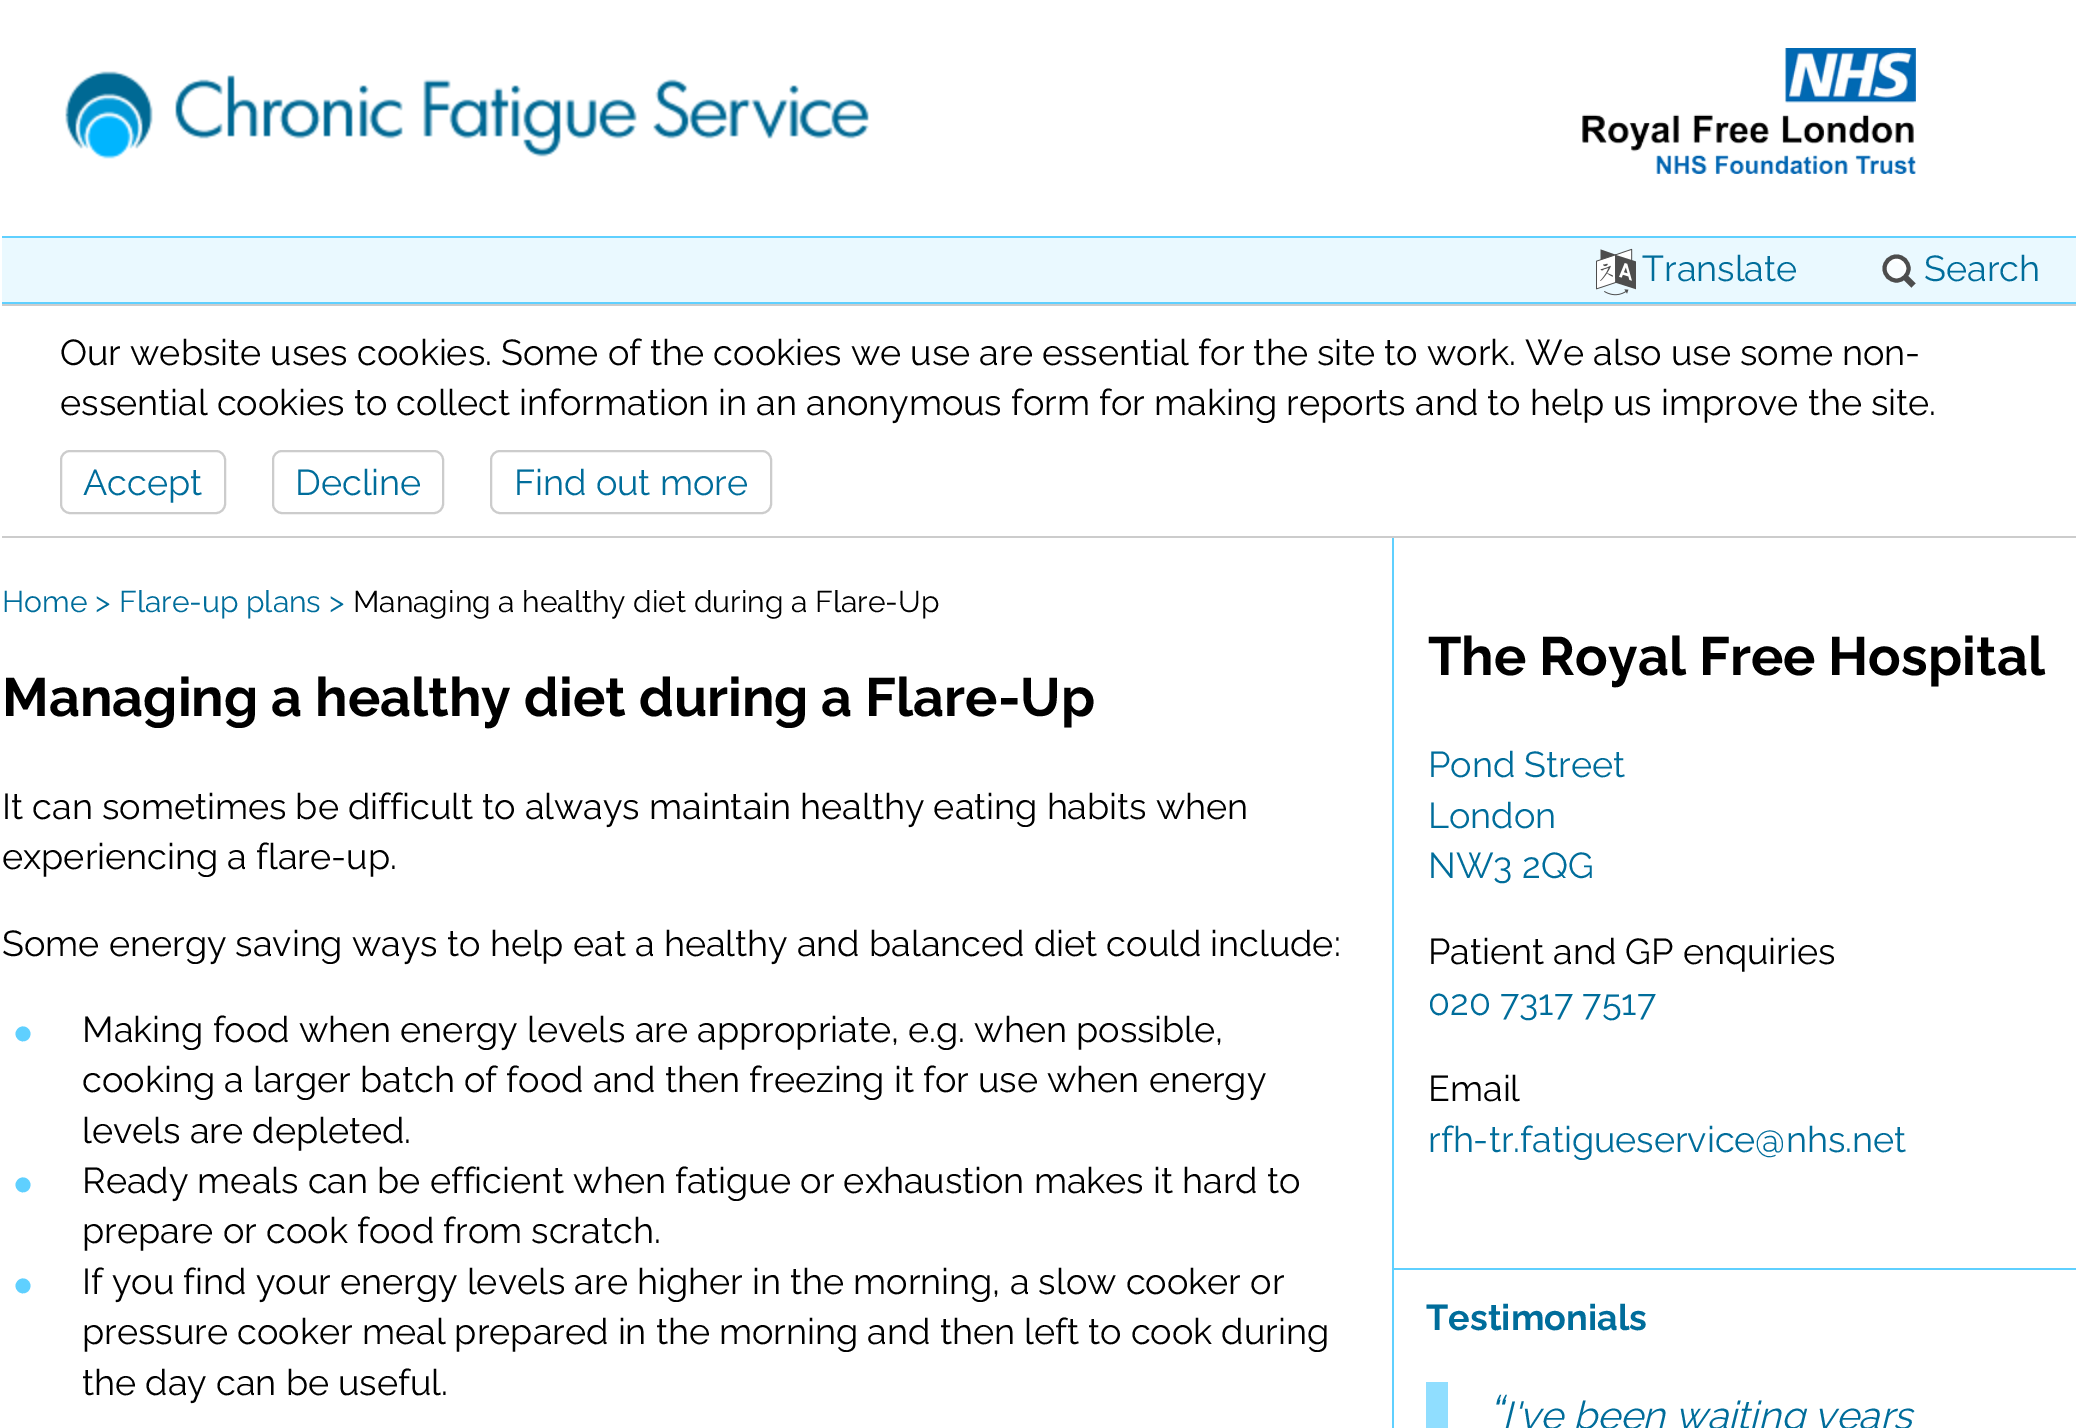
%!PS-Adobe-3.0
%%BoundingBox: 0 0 2077 1428
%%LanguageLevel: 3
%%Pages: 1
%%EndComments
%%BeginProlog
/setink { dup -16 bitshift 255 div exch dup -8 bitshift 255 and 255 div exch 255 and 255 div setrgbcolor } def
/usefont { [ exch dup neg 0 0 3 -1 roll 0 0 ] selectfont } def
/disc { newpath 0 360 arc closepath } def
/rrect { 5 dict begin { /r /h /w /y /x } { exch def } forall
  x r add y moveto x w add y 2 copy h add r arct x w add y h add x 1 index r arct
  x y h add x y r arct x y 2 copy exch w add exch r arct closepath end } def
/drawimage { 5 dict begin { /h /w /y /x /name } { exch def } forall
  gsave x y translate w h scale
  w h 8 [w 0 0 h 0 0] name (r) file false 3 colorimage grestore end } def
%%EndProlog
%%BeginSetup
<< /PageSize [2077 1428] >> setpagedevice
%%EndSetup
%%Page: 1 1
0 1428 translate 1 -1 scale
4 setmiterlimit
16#FFFFFF setink
0 0 2077 1428 rectfill
(img1.raw) 65 71 804 88 drawimage
(img2.raw) 1582 48 334 126 drawimage
[
    [2 238 2074 64 16#EAF9FF]
    [2 236 2074 2 16#5FD0FF]
    [2 302 2074 2 16#5FD0FF]
] { aload pop setink rectfill } forall
(img3.raw) 1596 248 40 48 drawimage
/Raleway-Regular 36 usefont
16#006D9B setink
1642 281 moveto (Translate) show
1924 281 moveto (Search) show
16#F9FDFF setink
1896.5 268.5 12 disc fill
16#FFFFFF setink
1908.5 268.5 moveto 1908.5 256 1892 252 1886 262.5 curveto 1896.5 256.5 1908.5 268.5 1902.5 279 curveto 1906 277 1908.5 273 1908.5 268.5 curveto closepath fill
16#4D4D4D setink
4 setlinewidth
1896.5 268.5 12 disc stroke
6 setlinewidth
1905 277 moveto 1913.5 285.5 lineto stroke
16#CCCCCC setink
2 304 2074 2 rectfill
2 536 2074 2 rectfill
16#000000 setink
60 365 moveto (Our website uses cookies. Some of the cookies we use are essential for the site to work. We also use some non-) show
60 415 moveto (essential cookies to collect information in an anonymous form for making reports and to help us improve the site.) show
16#CCCCCC setink
2 setlinewidth
61 451 164 62 9 rrect stroke
16#006D9B setink
83 495 moveto (Accept) show
16#CCCCCC setink
273 451 170 62 9 rrect stroke
16#006D9B setink
295 495 moveto (Decline) show
16#CCCCCC setink
491 451 280 62 9 rrect stroke
16#006D9B setink
514 495 moveto (Find out more) show
16#5FD0FF setink
1392 538 2 890 rectfill
/Raleway-Regular 30 usefont
16#006D9B setink
2 612 moveto (Home >) show
119 612 moveto (Flare-up plans >) show
16#000000 setink
353 612 moveto (Managing a healthy diet during a Flare-Up) show
/Raleway-Bold 54 usefont
2 716 moveto (Managing a healthy diet during a Flare-Up) show
/Raleway-Regular 36 usefont
[
    [(It can sometimes be difficult to always maintain healthy eating habits when) 2 819]
    [(experiencing a flare-up.) 2 869]
    [(Some energy saving ways to help eat a healthy and balanced diet could include:) 2 956]
] { aload pop moveto show } forall
/Raleway-Bold 72 usefont
16#5FD0FF setink
10 1059 moveto (•) show
/Raleway-Regular 36 usefont
16#000000 setink
[
    [(Making food when energy levels are appropriate, e.g. when possible,) 82 1042]
    [(cooking a larger batch of food and then freezing it for use when energy) 82 1092]
    [(levels are depleted.) 82 1143]
] { aload pop moveto show } forall
/Raleway-Bold 72 usefont
16#5FD0FF setink
10 1210 moveto (•) show
/Raleway-Regular 36 usefont
16#000000 setink
82 1193 moveto (Ready meals can be efficient when fatigue or exhaustion makes it hard to) show
82 1243 moveto (prepare or cook food from scratch.) show
/Raleway-Bold 72 usefont
16#5FD0FF setink
10 1311 moveto (•) show
/Raleway-Regular 36 usefont
16#000000 setink
[
    [(If you find your energy levels are higher in the morning, a slow cooker or) 82 1294]
    [(pressure cooker meal prepared in the morning and then left to cook during) 82 1344]
    [(the day can be useful.) 82 1395]
] { aload pop moveto show } forall
/Raleway-Bold 54 usefont
1428 675 moveto (The Royal Free Hospital) show
/Raleway-Regular 36 usefont
16#006D9B setink
[
    [(Pond Street) 1428 777]
    [(London) 1428 828]
    [(NW3 2QG) 1428 878]
] { aload pop moveto show } forall
16#000000 setink
1428 964 moveto (Patient and GP enquiries) show
16#006D9B setink
1428 1015 moveto (020 7317 7517) show
16#000000 setink
1428 1101 moveto (Email) show
16#006D9B setink
1428 1152 moveto (rfh-tr.fatigueservice@nhs.net) show
16#5FD0FF setink
1392 1268 684 2 rectfill
/Raleway-Bold 36 usefont
16#006D9B setink
1426 1330 moveto (Testimonials) show
16#90DEFF setink
1426 1382 22 46 rectfill
/Raleway-Italic 47 usefont
16#006D9B setink
1487 1429 moveto (“) show
/Raleway-Italic 38.9 usefont
1502 1429 moveto (I've been waiting years) show
showpage
%%EOF
